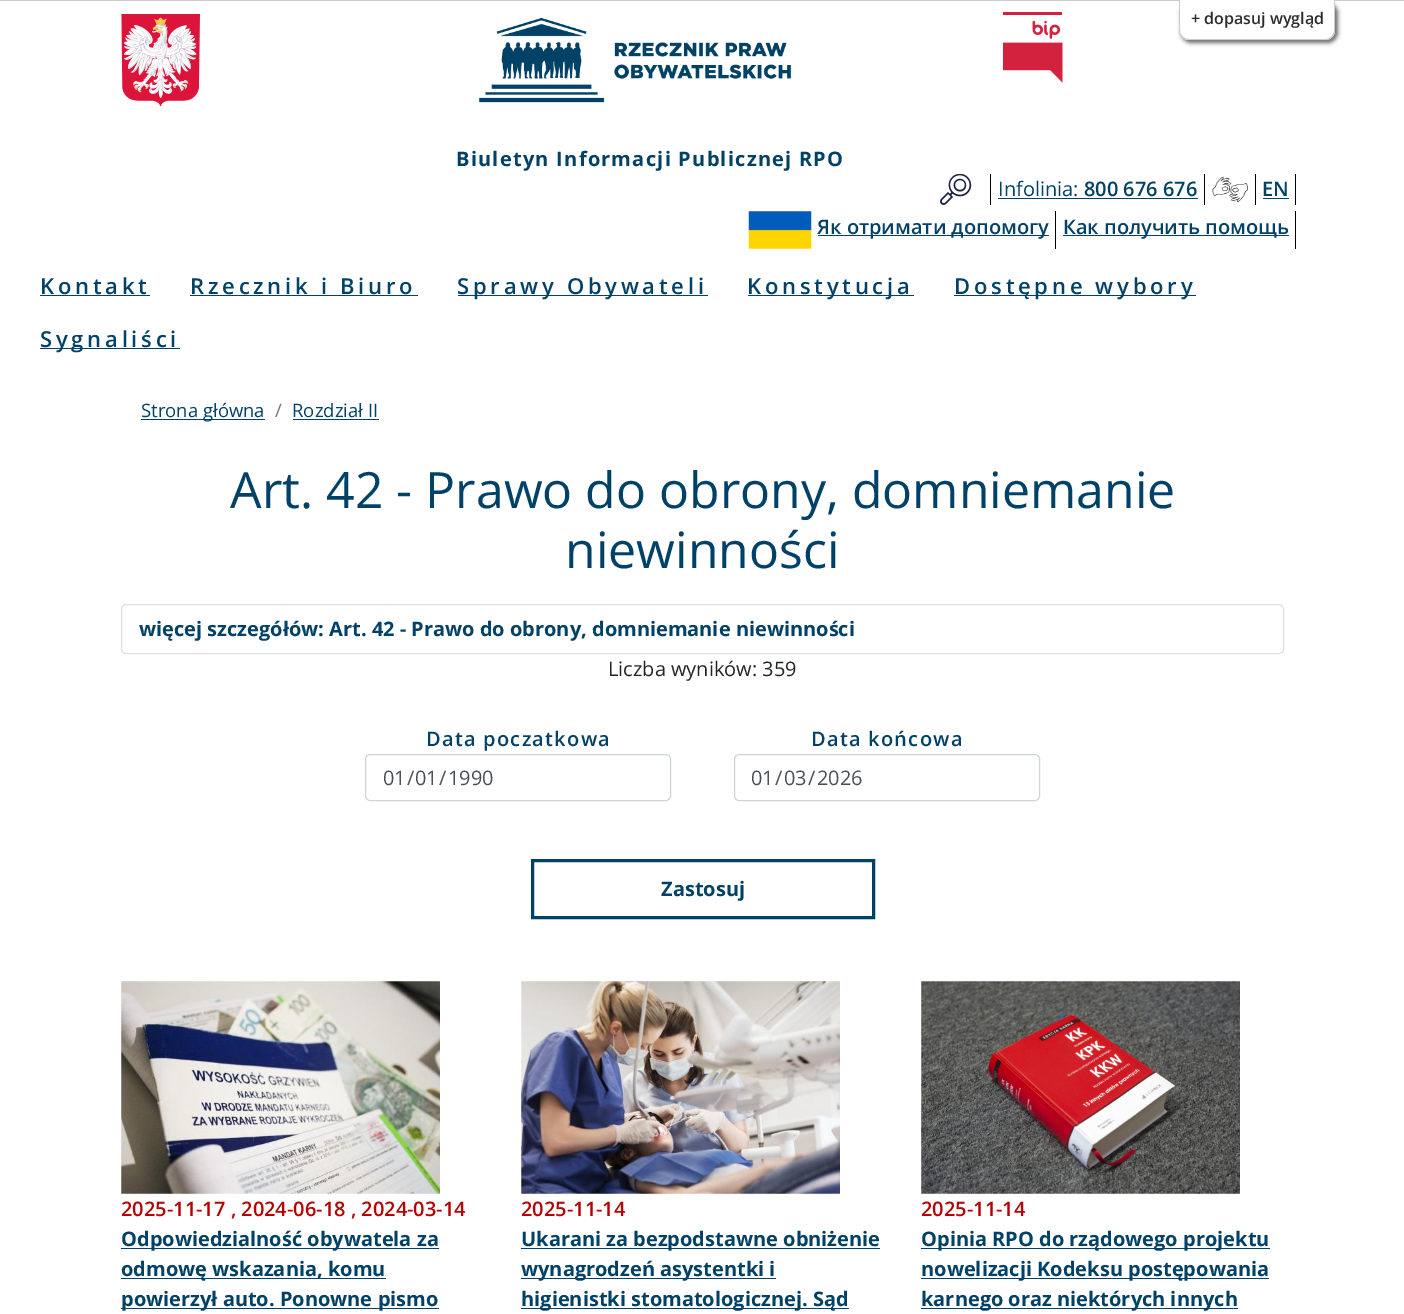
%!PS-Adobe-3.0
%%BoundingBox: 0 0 1404 1314
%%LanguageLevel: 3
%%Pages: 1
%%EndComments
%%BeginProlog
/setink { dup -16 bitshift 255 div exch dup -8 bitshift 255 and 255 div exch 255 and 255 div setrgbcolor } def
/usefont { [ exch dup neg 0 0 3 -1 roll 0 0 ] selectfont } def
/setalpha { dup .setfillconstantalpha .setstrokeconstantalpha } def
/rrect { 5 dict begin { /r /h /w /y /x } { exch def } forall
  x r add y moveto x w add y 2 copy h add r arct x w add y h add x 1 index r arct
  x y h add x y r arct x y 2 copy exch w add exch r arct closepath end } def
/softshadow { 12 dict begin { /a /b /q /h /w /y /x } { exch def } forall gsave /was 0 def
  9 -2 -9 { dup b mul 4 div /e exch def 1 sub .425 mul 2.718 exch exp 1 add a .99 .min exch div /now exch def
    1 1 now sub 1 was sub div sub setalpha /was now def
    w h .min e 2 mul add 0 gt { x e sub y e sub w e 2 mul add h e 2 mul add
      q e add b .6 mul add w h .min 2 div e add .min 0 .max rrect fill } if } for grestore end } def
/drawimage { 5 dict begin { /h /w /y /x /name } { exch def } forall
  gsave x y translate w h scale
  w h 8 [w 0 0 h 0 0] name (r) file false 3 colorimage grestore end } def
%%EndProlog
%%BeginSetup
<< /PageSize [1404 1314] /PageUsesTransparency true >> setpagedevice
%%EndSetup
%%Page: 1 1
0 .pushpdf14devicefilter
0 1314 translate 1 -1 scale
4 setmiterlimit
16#FFFFFF setink
0 0 1404 1314 rectfill
16#CCCCCC setink
0 0 1404 1 rectfill
16#6F6F6F setink
1181 3 157 40 10 2 1 softshadow
16#FFFFFF setink
1179 0 moveto 1335 0 lineto 1335 30 lineto 1335 35.5 1330.5 40 1325 40 curveto 1189 40 lineto 1183.5 40 1179 35.5 1179 30 curveto closepath fill
16#CCCCCC setink
1179 0 moveto 1335 0 lineto 1335 30 lineto 1335 36 1331 40 1325 40 curveto 1189 40 lineto 1183 40 1179 36 1179 30 curveto closepath 1180 0 moveto 1334 0 lineto 1334 30 lineto 1334 35 1330 39 1325 39 curveto 1189 39 lineto 1184 39 1180 35 1180 30 curveto closepath eofill
/OpenSans-SemiBold 16 usefont
16#2F2B2A setink
1191 24 moveto (+ dopasuj wygląd) show
(img1.raw) 121 14 79 92 drawimage
(img2.raw) 478 17 314 86 drawimage
(img3.raw) 1003 12 60 71 drawimage
/OpenSans-Bold 20 usefont
16#004167 setink
456 166 moveto 1.25 0 (Biuletyn Informacji Publicznej RPO) ashow
16#000000 setink
990 174 1 31 rectfill
(img4.raw) 940 174 32 31 drawimage
1204 174 1 31 rectfill
/OpenSans-Regular 20 usefont
16#004167 setink
998 196 moveto (Infolinia:) show
998 198 200 1 rectfill
/OpenSans-SemiBold 20 usefont
1084 196 moveto (800 676 676) show
16#000000 setink
1255 174 1 31 rectfill
(img5.raw) 1212 176 36 27 drawimage
1295 174 1 31 rectfill
16#004167 setink
1262 196 moveto (EN) show
1263 198 26 1 rectfill
(img6.raw) 748 211 64 38 drawimage
16#000000 setink
1055 211 1 38 rectfill
16#004167 setink
818 235 231 1 rectfill
817 234 moveto (Як отримати допомогу) show
16#000000 setink
1295 211 1 38 rectfill
16#004167 setink
1063 235 226 1 rectfill
1063 234 moveto (Как получить помощь) show
/OpenSans-SemiBold 22 usefont
40 294 moveto 3.75 0 (Kontakt) ashow
40 295 110 1 rectfill
190 294 moveto 3.75 0 (Rzecznik i Biuro) ashow
190 295 228 1 rectfill
458 295 250 1 rectfill
457 294 moveto 3.75 0 (Sprawy Obywateli) ashow
748 295 166 1 rectfill
747 294 moveto 3.75 0 (Konstytucja) ashow
954 295 242 1 rectfill
954 294 moveto 3.75 0 (Dostępne wybory) ashow
40 348 140 1 rectfill
40 347 moveto 3.75 0 (Sygnaliści) ashow
141 419 124 1 rectfill
/OpenSans-Regular 18.5 usefont
141 417 moveto (Strona główna) show
16#6C757D setink
275 417 moveto (/) show
16#004167 setink
292 417 moveto (Rozdział II) show
293 419 86 1 rectfill
/OpenSans-Regular 50 usefont
230 508 moveto (Art. 42 - Prawo do obrony, domniemanie) show
565 568 moveto (niewinności) show
16#DFDFDF setink
121.5 604.5 1162 49 4.5 rrect stroke
/OpenSans-Bold 20 usefont
16#004167 setink
139 636 moveto (więcej szczegółów: Art. 42 - Prawo do obrony, domniemanie niewinności) show
/OpenSans-Regular 20 usefont
16#212529 setink
608 676 moveto (Liczba wyników: 359) show
/OpenSans-SemiBold 20 usefont
16#004167 setink
426 746 moveto 1.25 0 (Data poczatkowa) ashow
16#CED4DA setink
365.5 754.5 305 46 4.5 rrect stroke
/OpenSans-Regular 20 usefont
16#495057 setink
[
    [(01) 383 785]
    [(/) 407 785]
    [(01) 415 785]
    [(/) 439 785]
    [(1990) 448 785]
] { aload pop moveto show } forall
/OpenSans-SemiBold 20 usefont
16#004167 setink
811 746 moveto 1.25 0 (Data końcowa) ashow
16#CED4DA setink
734.5 754.5 305 46 4.5 rrect stroke
/OpenSans-Regular 20 usefont
16#495057 setink
[
    [(01) 751 785]
    [(/) 775 785]
    [(03) 784 785]
    [(/) 808 785]
    [(2026) 817 785]
] { aload pop moveto show } forall
16#004167 setink
3 setlinewidth
532.5 860.5 341 57 rectstroke
/OpenSans-Bold 20 usefont
661 896 moveto (Zastosuj) show
(img7.raw) 121 981 319 213 drawimage
/OpenSans-SemiBold 20 usefont
16#B60000 setink
121 1216 moveto (2025-11-17 , 2024-06-18 , 2024-03-14) show
16#004167 setink
121 1248 318 1 rectfill
/OpenSans-Bold 20 usefont
121 1246 moveto (Odpowiedzialność obywatela za) show
121 1278 265 1 rectfill
121 1276 moveto (odmowę wskazania, komu) show
121 1308 318 1 rectfill
121 1306 moveto (powierzył auto. Ponowne pismo) show
(img8.raw) 521 981 319 213 drawimage
/OpenSans-SemiBold 20 usefont
16#B60000 setink
521 1216 moveto (2025-11-14) show
16#004167 setink
521 1248 359 1 rectfill
/OpenSans-Bold 20 usefont
521 1246 moveto (Ukarani za bezpodstawne obniżenie) show
521 1278 255 1 rectfill
521 1276 moveto (wynagrodzeń asystentki i) show
521 1308 328 1 rectfill
521 1306 moveto (higienistki stomatologicznej. Sąd) show
(img9.raw) 921 981 319 213 drawimage
/OpenSans-SemiBold 20 usefont
16#B60000 setink
921 1216 moveto (2025-11-14) show
16#004167 setink
921 1248 349 1 rectfill
/OpenSans-Bold 20 usefont
921 1246 moveto (Opinia RPO do rządowego projektu) show
921 1278 348 1 rectfill
921 1276 moveto (nowelizacji Kodeksu postępowania) show
921 1308 317 1 rectfill
921 1306 moveto (karnego oraz niektórych innych) show
.poppdf14devicefilter showpage
%%EOF
